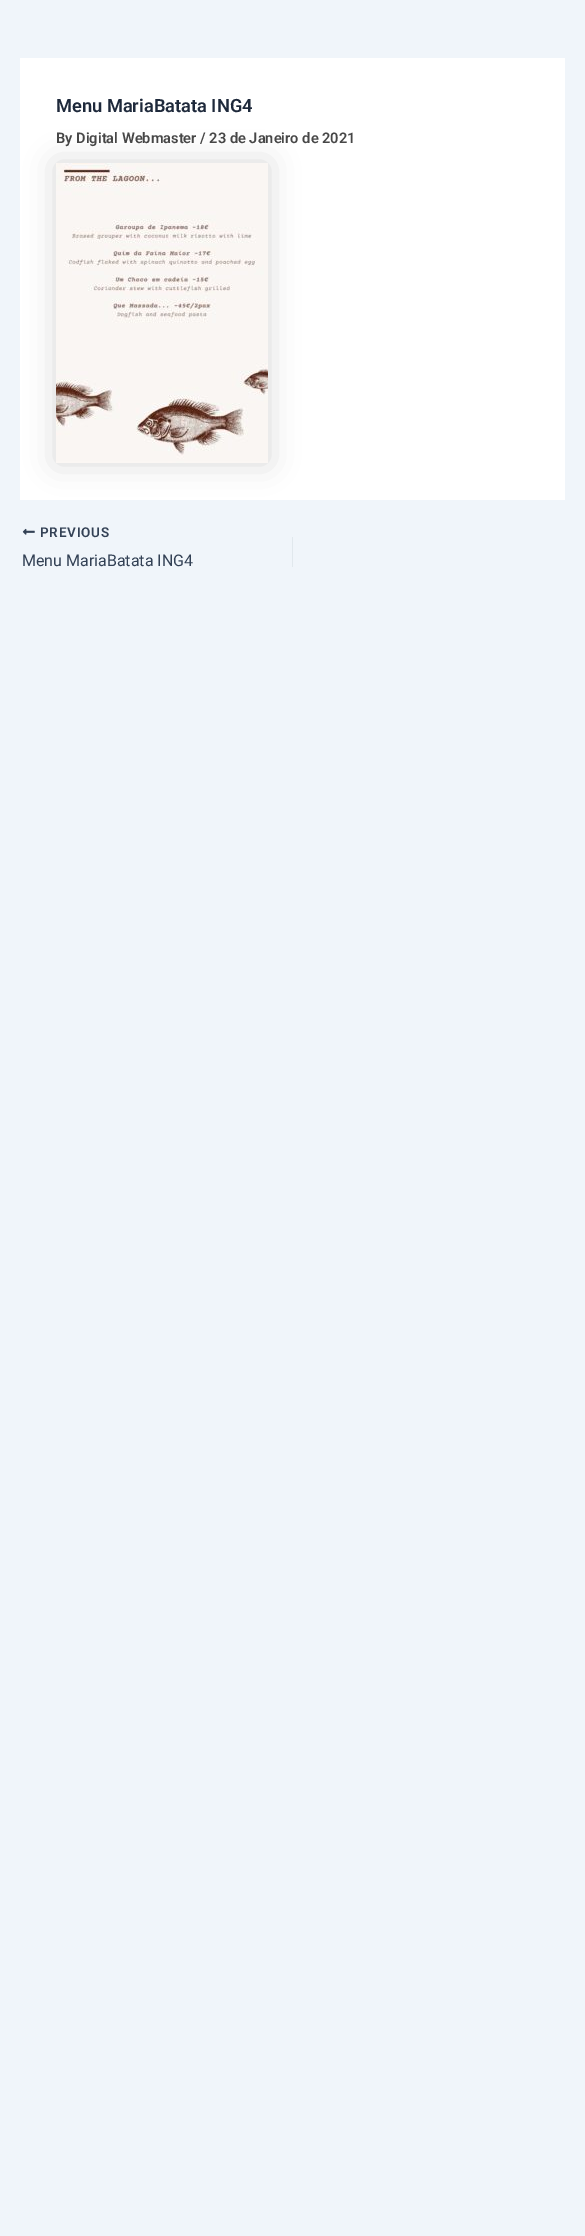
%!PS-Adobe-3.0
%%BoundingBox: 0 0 585 2236
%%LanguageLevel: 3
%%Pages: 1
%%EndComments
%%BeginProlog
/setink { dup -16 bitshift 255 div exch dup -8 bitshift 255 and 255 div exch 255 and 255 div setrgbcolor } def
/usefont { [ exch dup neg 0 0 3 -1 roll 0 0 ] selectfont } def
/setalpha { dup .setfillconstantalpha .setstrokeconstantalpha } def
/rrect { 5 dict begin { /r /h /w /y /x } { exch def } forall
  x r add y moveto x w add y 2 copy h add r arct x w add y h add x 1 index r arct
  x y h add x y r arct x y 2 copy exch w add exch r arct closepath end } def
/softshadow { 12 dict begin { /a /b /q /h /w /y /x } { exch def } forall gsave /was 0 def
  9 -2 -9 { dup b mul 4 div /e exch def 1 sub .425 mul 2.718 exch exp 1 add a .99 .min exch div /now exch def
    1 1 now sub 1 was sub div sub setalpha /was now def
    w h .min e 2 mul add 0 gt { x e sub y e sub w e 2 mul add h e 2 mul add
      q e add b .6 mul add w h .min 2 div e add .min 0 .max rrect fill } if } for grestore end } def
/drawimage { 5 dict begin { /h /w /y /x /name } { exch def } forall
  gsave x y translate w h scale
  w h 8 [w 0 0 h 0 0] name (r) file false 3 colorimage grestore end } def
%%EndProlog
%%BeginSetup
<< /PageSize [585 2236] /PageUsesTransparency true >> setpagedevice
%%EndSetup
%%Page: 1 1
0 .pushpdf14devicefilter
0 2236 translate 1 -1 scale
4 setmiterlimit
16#F0F5FA setink
0 0 585 2236 rectfill
16#FFFFFF setink
20 58 545 442 rectfill
/Roboto-SemiBold 18.25 usefont
16#1E293B setink
56 112 moveto (Menu MariaBatata ING4) show
/Roboto-SemiBold 14.6 usefont
16#474747 setink
56 143 moveto (By Digital Webmaster / 23 de Janeiro de 2021) show
16#000000 setink
56 163 212 300 0 15 0.15 softshadow
(img1.raw) 56 163 212 300 drawimage
(img2.raw) 22 528 13 7 drawimage
/Roboto-SemiBold 13.5 usefont
16#334155 setink
40 537 moveto 0.75 0 (PREVIOUS) ashow
/Roboto-Regular 16 usefont
22 566 moveto (Menu MariaBatata ING4) show
16#E1E8ED setink
292 537 1 30 rectfill
.poppdf14devicefilter showpage
%%EOF
